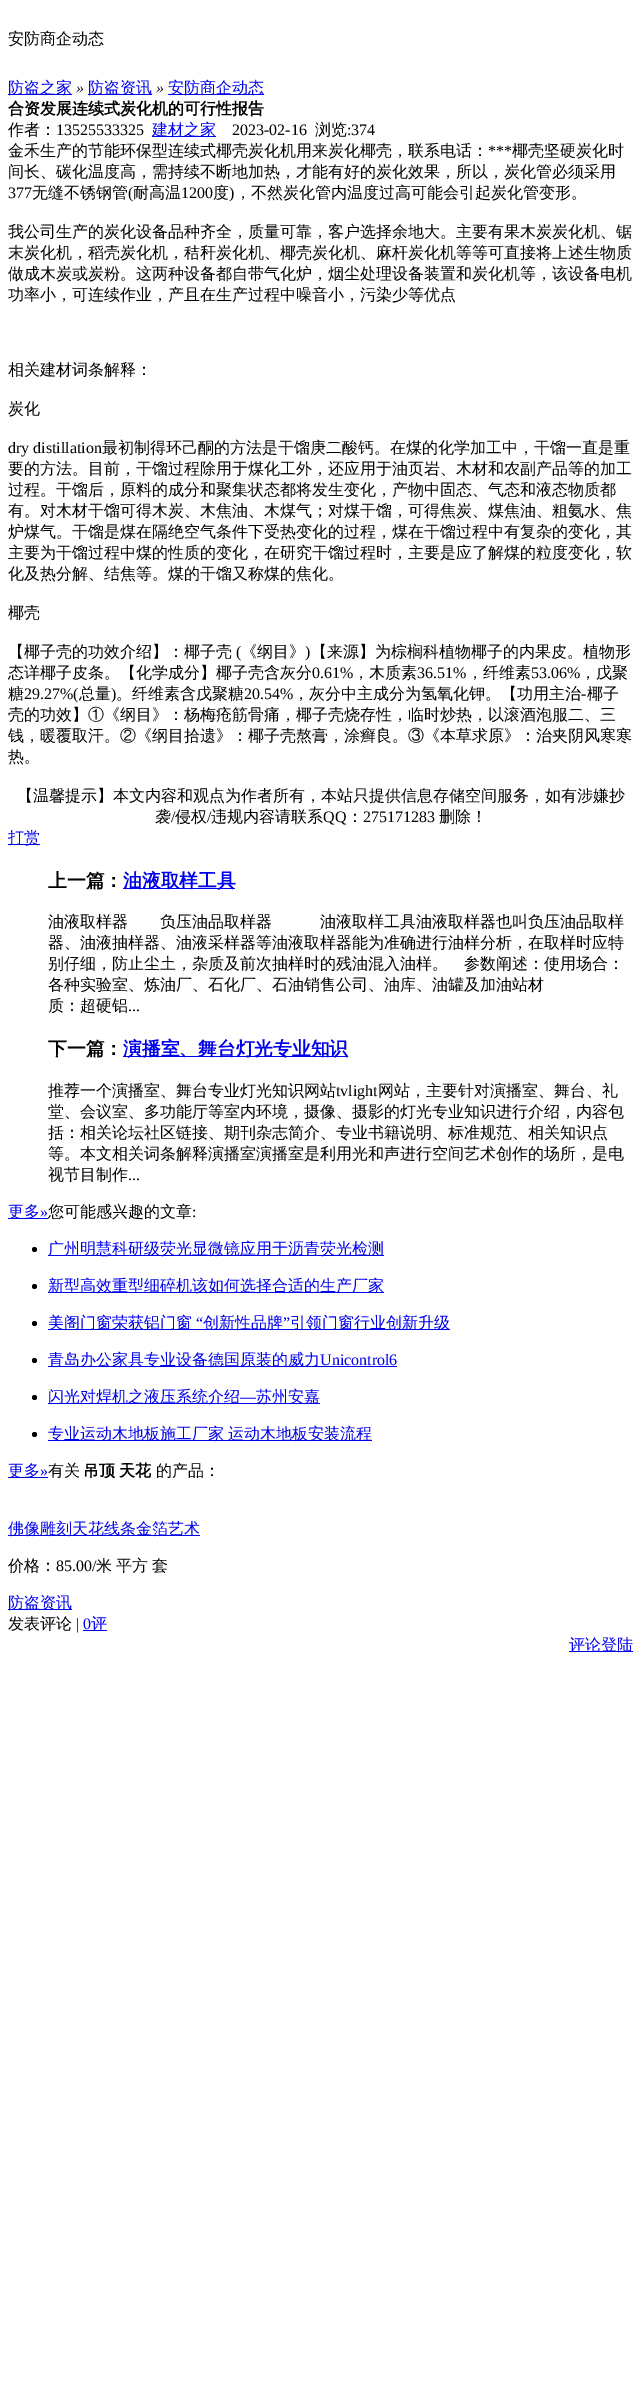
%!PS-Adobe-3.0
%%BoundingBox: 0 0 641 2384
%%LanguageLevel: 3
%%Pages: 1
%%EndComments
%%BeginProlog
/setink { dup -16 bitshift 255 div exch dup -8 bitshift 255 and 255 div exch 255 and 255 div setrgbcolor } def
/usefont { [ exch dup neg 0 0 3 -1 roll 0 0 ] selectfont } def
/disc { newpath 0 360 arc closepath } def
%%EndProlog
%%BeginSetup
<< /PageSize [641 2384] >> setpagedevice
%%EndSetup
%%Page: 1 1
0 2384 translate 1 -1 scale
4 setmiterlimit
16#FFFFFF setink
0 0 641 2384 rectfill
/WenQuanYiZenHei-Medium 16 usefont
16#000000 setink
8 44 moveto (安防商企动态) show
16#0000EE setink
8 94 64 1 rectfill
8 93 moveto (防盗之家) show
/LiberationSerif-Italic 16 usefont
16#000000 setink
76 93 moveto (») show
16#0000EE setink
88 94 64 1 rectfill
/WenQuanYiZenHei-Medium 16 usefont
88 93 moveto (防盗资讯) show
/LiberationSerif-Italic 16 usefont
16#000000 setink
156 93 moveto (») show
16#0000EE setink
168 94 96 1 rectfill
/WenQuanYiZenHei-Medium 16 usefont
168 93 moveto (安防商企动态) show
/WenQuanYiZenHei-Bold 16 usefont
16#000000 setink
8 114 moveto (合资发展连续式炭化机的可行性报告) show
/WenQuanYiZenHei-Medium 16 usefont
8 135 moveto (作者：) show
/LiberationSerif-Regular 16 usefont
56 135 moveto (13525533325) show
16#0000EE setink
152 136 64 1 rectfill
/WenQuanYiZenHei-Medium 16 usefont
152 135 moveto (建材之家) show
/LiberationSerif-Regular 16 usefont
16#000000 setink
232 135 moveto (2023-02-16) show
/WenQuanYiZenHei-Medium 16 usefont
315 135 moveto (浏览) show
/LiberationSerif-Regular 16 usefont
347 135 moveto (:374) show
/WenQuanYiZenHei-Medium 16 usefont
8 156 moveto (金禾生产的节能环保型连续式椰壳炭化机用来炭化椰壳，联系电话：) show
/LiberationSerif-Regular 16 usefont
488 156 moveto (***) show
/WenQuanYiZenHei-Medium 16 usefont
512 156 moveto (椰壳坚硬炭化时) show
8 177 moveto (间长、碳化温度高，需持续不断地加热，才能有好的炭化效果，所以，炭化管必须采用) show
/LiberationSerif-Regular 16 usefont
8 198 moveto (377) show
/WenQuanYiZenHei-Medium 16 usefont
32 198 moveto (无缝不锈钢管) show
/LiberationSerif-Regular 16 usefont
128 198 moveto (\() show
/WenQuanYiZenHei-Medium 16 usefont
133 198 moveto (耐高温) show
/LiberationSerif-Regular 16 usefont
181 198 moveto (1200) show
/WenQuanYiZenHei-Medium 16 usefont
213 198 moveto (度) show
/LiberationSerif-Regular 16 usefont
229 198 moveto (\)) show
/WenQuanYiZenHei-Medium 16 usefont
[
    [(，不然炭化管内温度过高可能会引起炭化管变形。) 235 198]
    [(我公司生产的炭化设备品种齐全，质量可靠，客户选择余地大。主要有果木炭炭化机、锯) 8 237]
    [(末炭化机，稻壳炭化机，秸秆炭化机、椰壳炭化机、麻杆炭化机等等可直接将上述生物质) 8 258]
    [(做成木炭或炭粉。这两种设备都自带气化炉，烟尘处理设备装置和炭化机等，该设备电机) 8 279]
    [(功率小，可连续作业，产且在生产过程中噪音小，污染少等优点) 8 300]
    [(相关建材词条解释：) 8 375]
    [(炭化) 8 414]
] { aload pop moveto show } forall
/LiberationSerif-Regular 16 usefont
8 453 moveto (dry distillation) show
/WenQuanYiZenHei-Medium 16 usefont
[
    [(最初制得环己酮的方法是干馏庚二酸钙。在煤的化学加工中，干馏一直是重) 102 453]
    [(要的方法。目前，干馏过程除用于煤化工外，还应用于油页岩、木材和农副产品等的加工) 8 474]
    [(过程。干馏后，原料的成分和聚集状态都将发生变化，产物中固态、气态和液态物质都) 8 495]
    [(有。对木材干馏可得木炭、木焦油、木煤气；对煤干馏，可得焦炭、煤焦油、粗氨水、焦) 8 516]
    [(炉煤气。干馏是煤在隔绝空气条件下受热变化的过程，煤在干馏过程中有复杂的变化，其) 8 537]
    [(主要为干馏过程中煤的性质的变化，在研究干馏过程时，主要是应了解煤的粒度变化，软) 8 558]
    [(化及热分解、结焦等。煤的干馏又称煤的焦化。) 8 579]
    [(椰壳) 8 618]
    [(【椰子壳的功效介绍】：椰子壳) 8 657]
] { aload pop moveto show } forall
/LiberationSerif-Regular 16 usefont
236 657 moveto (\() show
/WenQuanYiZenHei-Medium 16 usefont
241 657 moveto (《纲目》) show
/LiberationSerif-Regular 16 usefont
305 657 moveto (\)) show
/WenQuanYiZenHei-Medium 16 usefont
311 657 moveto (【来源】为棕榈科植物椰子的内果皮。植物形) show
8 678 moveto (态详椰子皮条。【化学成分】椰子壳含灰分) show
/LiberationSerif-Regular 16 usefont
312 678 moveto (0.61%) show
/WenQuanYiZenHei-Medium 16 usefont
353 678 moveto (，木质素) show
/LiberationSerif-Regular 16 usefont
417 678 moveto (36.51%) show
/WenQuanYiZenHei-Medium 16 usefont
467 678 moveto (，纤维素) show
/LiberationSerif-Regular 16 usefont
531 678 moveto (53.06%) show
/WenQuanYiZenHei-Medium 16 usefont
580 678 moveto (，戊聚) show
8 699 moveto (糖) show
/LiberationSerif-Regular 16 usefont
24 699 moveto (29.27%\() show
/WenQuanYiZenHei-Medium 16 usefont
79 699 moveto (总量) show
/LiberationSerif-Regular 16 usefont
111 699 moveto (\)) show
/WenQuanYiZenHei-Medium 16 usefont
116 699 moveto (。纤维素含戊聚糖) show
/LiberationSerif-Regular 16 usefont
244 699 moveto (20.54%) show
/WenQuanYiZenHei-Medium 16 usefont
293 699 moveto (，灰分中主成分为氢氧化钾。【功用主治) show
/LiberationSerif-Regular 16 usefont
581 699 moveto (-) show
/WenQuanYiZenHei-Medium 16 usefont
[
    [(椰子) 587 699]
    [(壳的功效】①《纲目》：杨梅疮筋骨痛，椰子壳烧存性，临时炒热，以滚酒泡服二、三) 8 720]
    [(钱，暖覆取汗。②《纲目拾遗》：椰子壳熬膏，涂癣良。③《本草求原》：治夹阴风寒寒) 8 741]
    [(热。) 8 762]
    [(【温馨提示】本文内容和观点为作者所有，本站只提供信息存储空间服务，如有涉嫌抄) 17 801]
    [(袭) 155 822]
] { aload pop moveto show } forall
/LiberationSerif-Regular 16 usefont
171 822 moveto (/) show
/WenQuanYiZenHei-Medium 16 usefont
175 822 moveto (侵权) show
/LiberationSerif-Regular 16 usefont
207 822 moveto (/) show
/WenQuanYiZenHei-Medium 16 usefont
211 822 moveto (违规内容请联系) show
/LiberationSerif-Regular 16 usefont
323 822 moveto (QQ) show
/WenQuanYiZenHei-Medium 16 usefont
347 822 moveto (：) show
/LiberationSerif-Regular 16 usefont
363 822 moveto (275171283) show
/WenQuanYiZenHei-Medium 16 usefont
439 822 moveto (删除！) show
16#0000EE setink
8 844 32 1 rectfill
8 843 moveto (打赏) show
/WenQuanYiZenHei-Bold 18.75 usefont
16#000000 setink
48 887 moveto (上一篇：) show
16#0000EE setink
123 888 112 1 rectfill
123 887 moveto (油液取样工具) show
/WenQuanYiZenHei-Medium 16 usefont
16#000000 setink
[
    [(油液取样器　　负压油品取样器　　　油液取样工具油液取样器也叫负压油品取样) 48 927]
    [(器、油液抽样器、油液采样器等油液取样器能为准确进行油样分析，在取样时应特) 48 948]
    [(别仔细，防止尘土，杂质及前次抽样时的残油混入油样。　参数阐述：使用场合：) 48 969]
    [(各种实验室、炼油厂、石化厂、石油销售公司、油库、油罐及加油站材) 48 990]
    [(质：超硬铝) 48 1011]
] { aload pop moveto show } forall
/LiberationSerif-Regular 16 usefont
128 1011 moveto (...) show
/WenQuanYiZenHei-Bold 18.75 usefont
48 1055 moveto (下一篇：) show
16#0000EE setink
123 1056 224 1 rectfill
123 1055 moveto (演播室、舞台灯光专业知识) show
/WenQuanYiZenHei-Medium 16 usefont
16#000000 setink
48 1096 moveto (推荐一个演播室、舞台专业灯光知识网站) show
/LiberationSerif-Regular 16 usefont
336 1096 moveto (tvlight) show
/WenQuanYiZenHei-Medium 16 usefont
[
    [(网站，主要针对演播室、舞台、礼) 378 1096]
    [(堂、会议室、多功能厅等室内环境，摄像、摄影的灯光专业知识进行介绍，内容包) 48 1117]
    [(括：相关论坛社区链接、期刊杂志简介、专业书籍说明、标准规范、相关知识点) 48 1138]
    [(等。本文相关词条解释演播室演播室是利用光和声进行空间艺术创作的场所，是电) 48 1159]
    [(视节目制作) 48 1180]
] { aload pop moveto show } forall
/LiberationSerif-Regular 16 usefont
128 1180 moveto (...) show
16#0000EE setink
8 1218 40 1 rectfill
/WenQuanYiZenHei-Medium 16 usefont
8 1217 moveto (更多) show
/LiberationSerif-Regular 16 usefont
40 1217 moveto (») show
/WenQuanYiZenHei-Medium 16 usefont
16#000000 setink
48 1217 moveto (您可能感兴趣的文章) show
/LiberationSerif-Regular 16 usefont
192 1217 moveto (:) show
34.5 1249.5 2.5 disc fill
16#0000EE setink
48 1255 336 1 rectfill
/WenQuanYiZenHei-Medium 16 usefont
48 1254 moveto (广州明慧科研级荧光显微镜应用于沥青荧光检测) show
16#000000 setink
34.5 1286.5 2.5 disc fill
16#0000EE setink
48 1292 336 1 rectfill
48 1291 moveto (新型高效重型细碎机该如何选择合适的生产厂家) show
48 1329 402 1 rectfill
48 1328 moveto (美阁门窗荣获铝门窗) show
/LiberationSerif-Regular 16 usefont
196 1328 moveto (“) show
/WenQuanYiZenHei-Medium 16 usefont
203 1328 moveto (创新性品牌) show
/LiberationSerif-Regular 16 usefont
283 1328 moveto (”) show
/WenQuanYiZenHei-Medium 16 usefont
290 1328 moveto (引领门窗行业创新升级) show
16#000000 setink
34.5 1323.5 2.5 disc fill
34.5 1360.5 2.5 disc fill
16#0000EE setink
48 1366 349 1 rectfill
48 1365 moveto (青岛办公家具专业设备德国原装的威力) show
/LiberationSerif-Regular 16 usefont
320 1365 moveto (Unicontrol6) show
16#000000 setink
34.5 1397.5 2.5 disc fill
16#0000EE setink
48 1403 272 1 rectfill
/WenQuanYiZenHei-Medium 16 usefont
48 1402 moveto (闪光对焊机之液压系统介绍) show
/LiberationSerif-Regular 16 usefont
240 1402 moveto (—) show
/WenQuanYiZenHei-Medium 16 usefont
256 1402 moveto (苏州安嘉) show
16#000000 setink
34.5 1434.5 2.5 disc fill
16#0000EE setink
48 1440 324 1 rectfill
48 1439 moveto -1 0 32 (专业运动木地板施工厂家 运动木地板安装流程) widthshow
8 1477 40 1 rectfill
8 1476 moveto (更多) show
/LiberationSerif-Regular 16 usefont
40 1476 moveto (») show
/WenQuanYiZenHei-Medium 16 usefont
16#000000 setink
48 1476 moveto (有关) show
/WenQuanYiZenHei-Bold 16 usefont
83 1476 moveto -1 0 32 (吊顶 天花) widthshow
/WenQuanYiZenHei-Medium 16 usefont
156 1476 moveto (的产品：) show
16#0000EE setink
8 1535 192 1 rectfill
8 1534 moveto (佛像雕刻天花线条金箔艺术) show
16#000000 setink
8 1571 moveto (价格：) show
/LiberationSerif-Regular 16 usefont
56 1571 moveto (85.00/) show
/WenQuanYiZenHei-Medium 16 usefont
96 1571 moveto -1 0 32 (米 平方 套) widthshow
16#0000EE setink
8 1609 64 1 rectfill
8 1608 moveto (防盗资讯) show
16#000000 setink
8 1629 moveto (发表评论) show
/LiberationSerif-Regular 16 usefont
76 1629 moveto (|) show
16#0000EE setink
83 1629 moveto (0) show
83 1630 24 1 rectfill
/WenQuanYiZenHei-Medium 16 usefont
91 1629 moveto (评) show
569 1651 64 1 rectfill
569 1650 moveto (评论登陆) show
showpage
%%EOF
